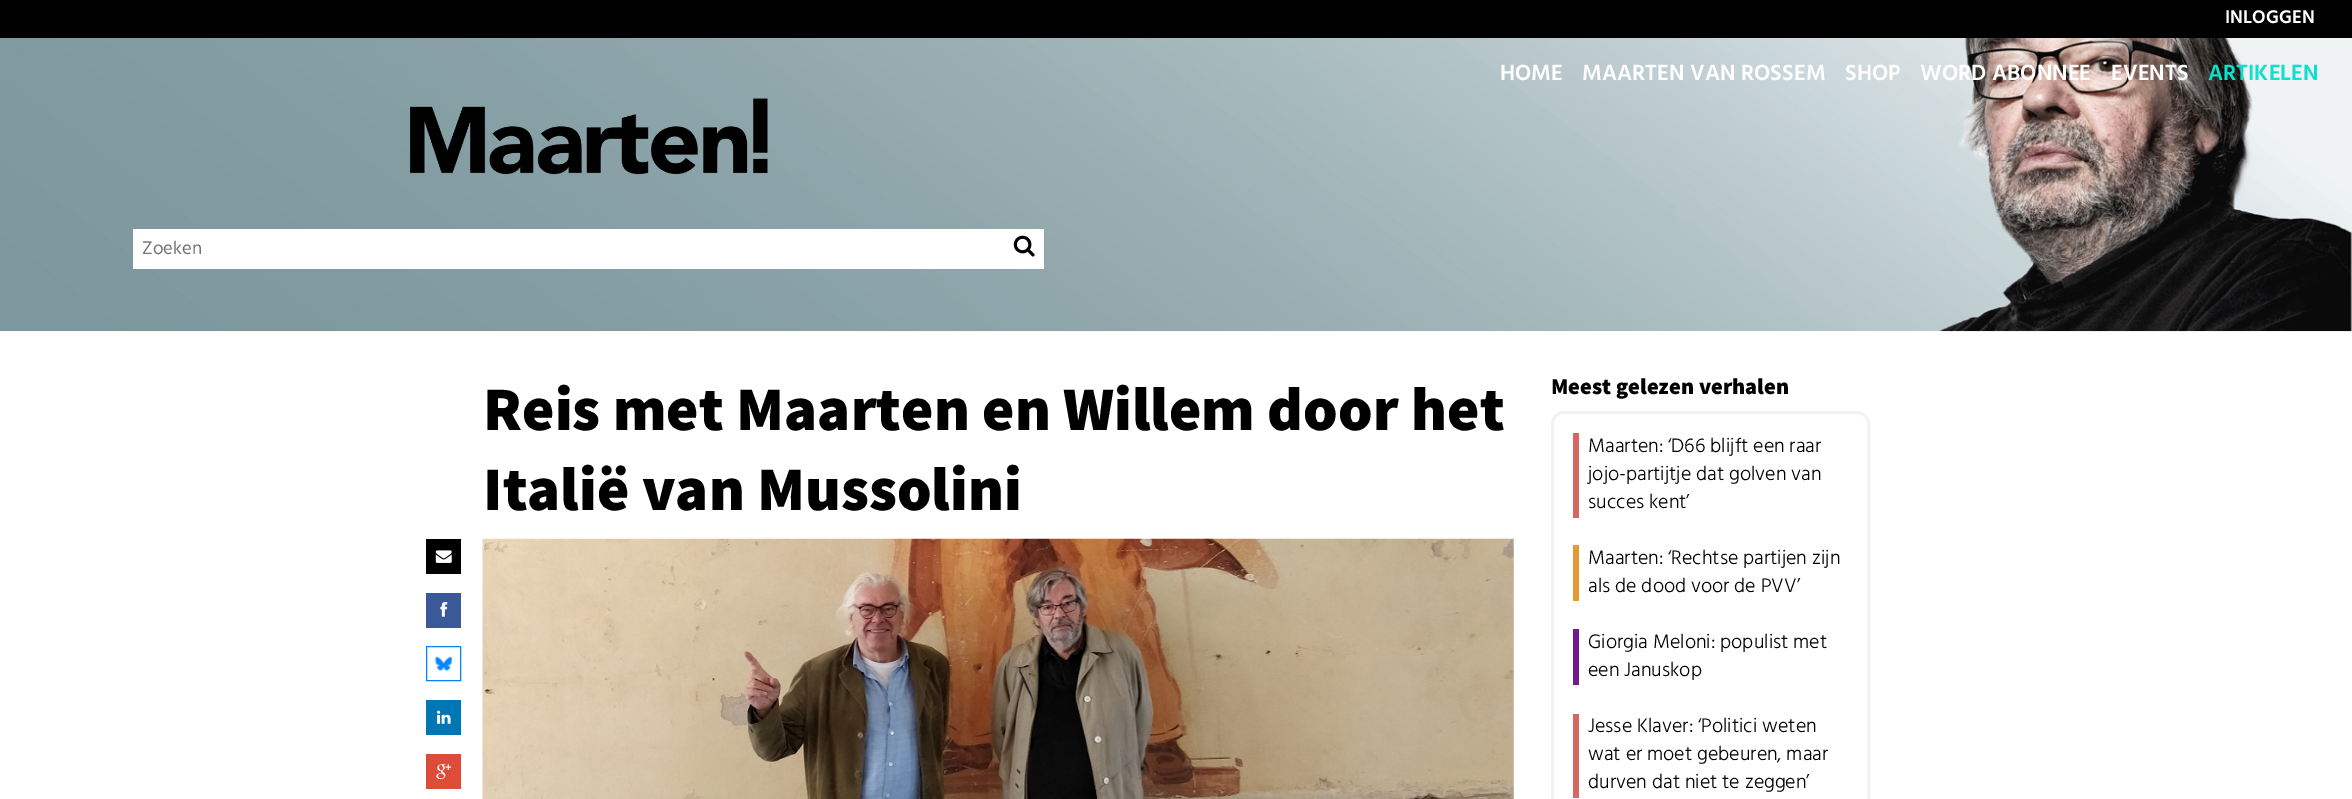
%!PS-Adobe-3.0
%%BoundingBox: 0 0 2352 799
%%LanguageLevel: 3
%%Pages: 1
%%EndComments
%%BeginProlog
/setink { dup -16 bitshift 255 div exch dup -8 bitshift 255 and 255 div exch 255 and 255 div setrgbcolor } def
/usefont { [ exch dup neg 0 0 3 -1 roll 0 0 ] selectfont } def
/rrect { 5 dict begin { /r /h /w /y /x } { exch def } forall
  x r add y moveto x w add y 2 copy h add r arct x w add y h add x 1 index r arct
  x y h add x y r arct x y 2 copy exch w add exch r arct closepath end } def
/drawimage { 5 dict begin { /h /w /y /x /name } { exch def } forall
  gsave x y translate w h scale
  w h 8 [w 0 0 h 0 0] name (r) file false 3 colorimage grestore end } def
%%EndProlog
%%BeginSetup
<< /PageSize [2352 799] >> setpagedevice
%%EndSetup
%%Page: 1 1
0 799 translate 1 -1 scale
4 setmiterlimit
16#FFFFFF setink
0 0 2352 799 rectfill
16#000000 setink
0 0 2352 38 rectfill
/Hind-SemiBold 18.75 usefont
16#FFFFFF setink
2225 23 moveto (INLOGGEN) show
(img1.raw) 0 38 2352 294 drawimage
/Hind-SemiBold 22.5 usefont
[
    [(HOME) 1500 80]
    [(MAARTEN VAN ROSSEM) 1582 80]
    [(SHOP) 1845 80]
    [(WORD ABONNEE) 1920 80]
    [(EVENTS) 2111 80]
] { aload pop moveto show } forall
16#0DE0CC setink
2208 80 moveto (ARTIKELEN) show
(img2.raw) 410 98 358 77 drawimage
16#FFFFFF setink
133 229 911 40 rectfill
/Hind-Regular 18.75 usefont
16#757575 setink
142 254 moveto (Zoeken) show
(img3.raw) 1013 235 22 22 drawimage
/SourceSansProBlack-Black 61.9 usefont
16#000000 setink
483 430 moveto (Reis met Maarten en Willem door het) show
483 510 moveto (Italië van Mussolini) show
426 539 35 35 rectfill
(img4.raw) 435 550 17 13 drawimage
16#3B5998 setink
426 593 35 35 rectfill
(img5.raw) 440 602 8 15 drawimage
16#0185FF setink
426.5 646.5 34 34 rectstroke
(img6.raw) 434 656 19 15 drawimage
16#0077B5 setink
426 700 35 35 rectfill
(img7.raw) 436 710 15 14 drawimage
16#DD4B39 setink
426 754 35 35 rectfill
(img8.raw) 436 764 16 16 drawimage
(img9.raw) 482 538 1032 261 drawimage
/SourceSansProBlack-Black 22.5 usefont
16#000000 setink
1551 394 moveto (Meest gelezen verhalen) show
16#F3F3F3 setink
3 setlinewidth
1552.5 412.5 316 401 11.5 rrect stroke
16#D86662 setink
1573 433 6 85 rectfill
/Hind-Light 20 usefont
16#000000 setink
[
    [(Maarten: ‘D66 blijft een raar) 1588 452]
    [(jojo-partijtje dat golven van) 1588 480]
    [(succes kent’) 1588 508]
] { aload pop moveto show } forall
16#E59836 setink
1573 545 6 56 rectfill
16#000000 setink
1588 564 moveto (Maarten: ‘Rechtse partijen zijn) show
1588 592 moveto (als de dood voor de PVV’) show
16#731A90 setink
1573 629 6 56 rectfill
16#000000 setink
1588 648 moveto (Giorgia Meloni: populist met) show
1588 676 moveto (een Januskop) show
16#D86662 setink
1573 714 6 84 rectfill
16#000000 setink
[
    [(Jesse Klaver: ‘Politici weten) 1588 732]
    [(wat er moet gebeuren, maar) 1588 760]
    [(durven dat niet te zeggen’) 1588 788]
] { aload pop moveto show } forall
showpage
%%EOF
